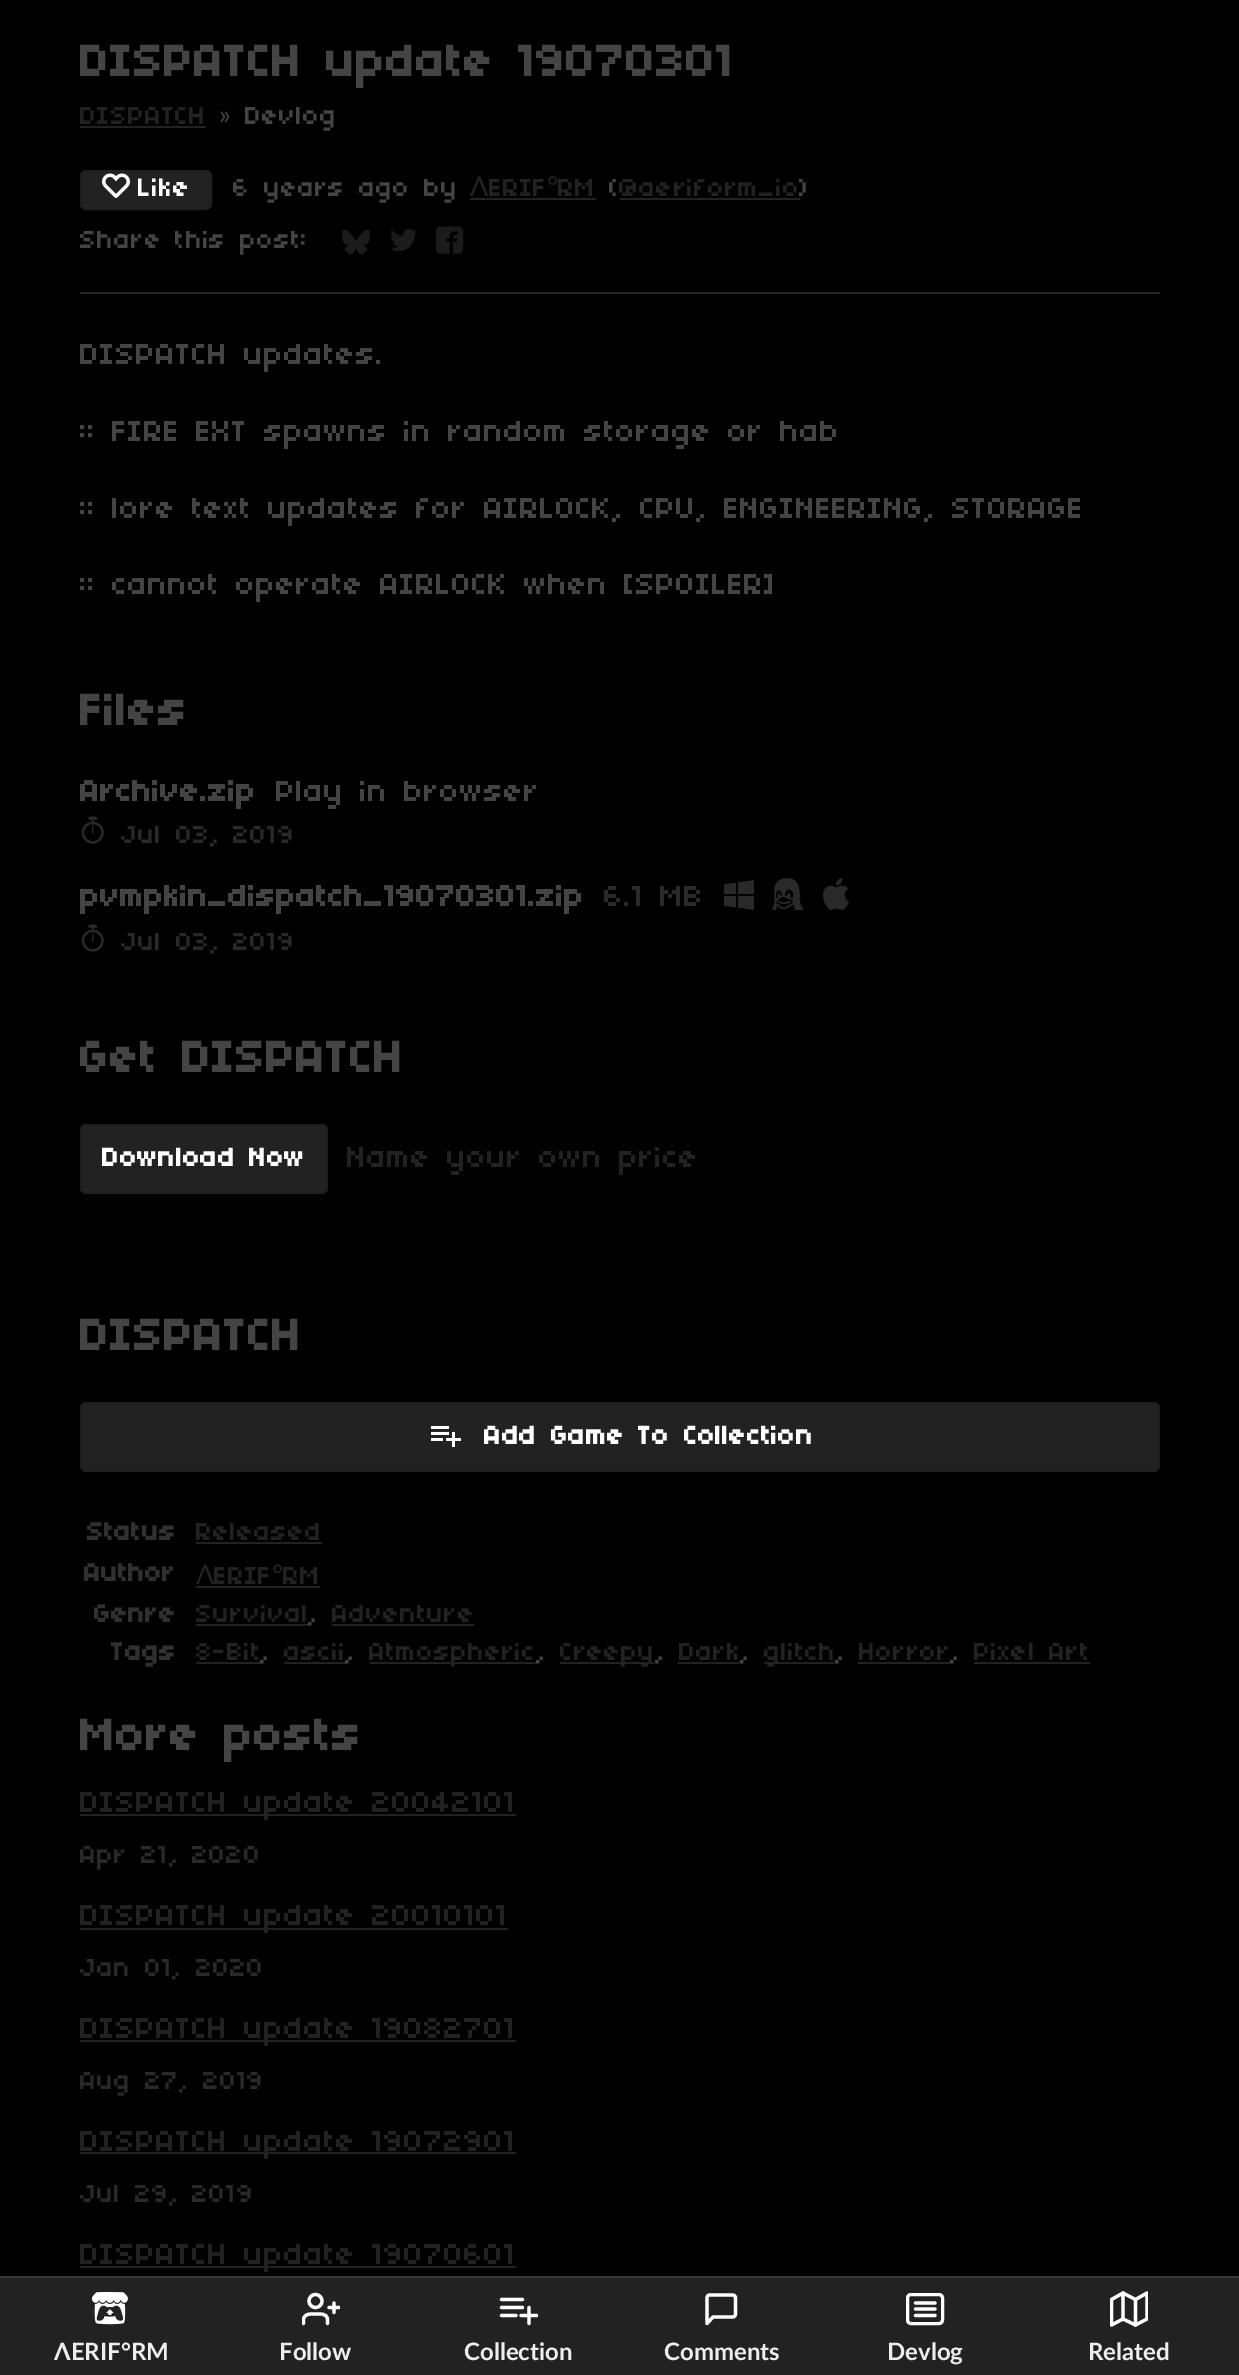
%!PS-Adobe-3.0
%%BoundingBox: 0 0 1239 2375
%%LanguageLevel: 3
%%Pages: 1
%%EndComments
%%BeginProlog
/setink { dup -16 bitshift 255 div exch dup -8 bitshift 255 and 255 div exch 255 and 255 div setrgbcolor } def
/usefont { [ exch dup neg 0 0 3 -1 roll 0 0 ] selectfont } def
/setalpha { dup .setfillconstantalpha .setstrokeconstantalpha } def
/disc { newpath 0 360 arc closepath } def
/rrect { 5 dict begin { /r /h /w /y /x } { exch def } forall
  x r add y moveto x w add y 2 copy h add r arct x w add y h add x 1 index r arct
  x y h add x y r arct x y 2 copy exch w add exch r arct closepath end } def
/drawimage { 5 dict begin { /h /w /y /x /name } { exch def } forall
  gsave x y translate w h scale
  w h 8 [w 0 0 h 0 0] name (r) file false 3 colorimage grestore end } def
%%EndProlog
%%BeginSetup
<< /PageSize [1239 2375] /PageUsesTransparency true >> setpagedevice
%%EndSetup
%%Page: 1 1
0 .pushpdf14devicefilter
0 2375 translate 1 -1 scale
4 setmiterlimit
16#000000 setink
0 0 1239 2375 rectfill
/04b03-Bold 48 usefont
16#444444 setink
80 76 moveto (DISPATCH update 19070301) show
/04b03-Regular 27.25 usefont
16#222222 setink
80 124 moveto (DISPATCH) show
80 126 126 2 rectfill
/Lato-Regular 27.25 usefont
16#444444 setink
219 124 moveto (») show
/04b03-Regular 27.25 usefont
245 124 moveto (Devlog) show
16#262626 setink
2 setlinewidth
81 171 130 38 7 rrect stroke
16#222222 setink
80 170 132 40 6 rrect fill
0.1 setalpha
16#000000 setink
81 171 130 38 5 rrect stroke
1 setalpha
(img1.raw) 102 173 28 25 drawimage
/04b03-Regular 28 usefont
16#FFFFFF setink
138 196 moveto (Like) show
/04b03-Regular 27.25 usefont
16#444444 setink
233 196 moveto (6 years ago by) show
/Lato-Regular 27.25 usefont
16#222222 setink
470 196 moveto (Λ) show
/04b03-Regular 27.25 usefont
489 196 moveto (ERIF) show
470 198 126 2 rectfill
/Lato-Regular 27.25 usefont
547 196 moveto (°) show
/04b03-Regular 27.25 usefont
558 196 moveto (RM) show
16#444444 setink
609 196 moveto (\() show
16#222222 setink
619 196 moveto (@aeriform_io) show
620 198 180 2 rectfill
16#444444 setink
799 196 moveto (\)) show
80 248 moveto (Share this post:) show
(img2.raw) 342 229 28 26 drawimage
(img3.raw) 390 229 27 22 drawimage
(img4.raw) 436 226 28 28 drawimage
16#262626 setink
80 292 1080 2 rectfill
/04b03-Regular 32 usefont
16#444444 setink
[
    [(DISPATCH updates.) 80 364]
    [(:: FIRE EXT spawns in random storage or hab) 80 441]
    [(:: lore text updates for AIRLOCK, CPU, ENGINEERING, STORAGE) 80 518]
    [(:: cannot operate AIRLOCK when [SPOILER]) 80 594]
] { aload pop moveto show } forall
/04b03-Bold 48 usefont
80 725 moveto (Files) show
/04b03-Bold 32 usefont
80 801 moveto (Archive.zip) show
/04b03-Regular 32 usefont
276 801 moveto (Play in browser) show
(img5.raw) 81 816 23 28 drawimage
/04b03-Regular 27.25 usefont
16#292929 setink
121 843 moveto (Jul 03, 2019) show
/04b03-Bold 32 usefont
16#444444 setink
80 906 moveto (pvmpkin_dispatch_19070301.zip) show
/04b03-Regular 32 usefont
16#292929 setink
604 906 moveto (6.1 MB) show
(img6.raw) 724 880 30 30 drawimage
(img7.raw) 772 878 32 32 drawimage
(img8.raw) 823 878 26 32 drawimage
(img5.raw) 81 924 23 28 drawimage
/04b03-Regular 27.25 usefont
121 950 moveto (Jul 03, 2019) show
/04b03-Bold 48 usefont
16#444444 setink
80 1072 moveto (Get DISPATCH) show
16#222222 setink
80 1124 248 70 6 rrect fill
0.1 setalpha
16#000000 setink
81 1125 246 68 5 rrect stroke
/04b03-Bold 28 usefont
1 setalpha
16#FFFFFF setink
102 1166 moveto (Download Now) show
/04b03-Regular 32 usefont
16#222222 setink
347 1167 moveto (Name your own price) show
/04b03-Bold 48 usefont
16#444444 setink
80 1350 moveto (DISPATCH) show
16#222222 setink
80 1402 1080 70 6 rrect fill
0.1 setalpha
16#000000 setink
81 1403 1078 68 5 rrect stroke
1 setalpha
(img9.raw) 431 1426 30 21 drawimage
/04b03-Bold 28 usefont
16#FFFFFF setink
484 1444 moveto (Add Game To Collection) show
/04b03-Bold 27.25 usefont
16#303030 setink
87 1540 moveto (Status) show
/04b03-Regular 27.25 usefont
16#222222 setink
196 1540 moveto (Released) show
196 1542 126 2 rectfill
/04b03-Bold 27.25 usefont
16#303030 setink
84 1581 moveto (Author) show
/Lato-Regular 27.25 usefont
16#222222 setink
196 1584 moveto (Λ) show
/04b03-Regular 27.25 usefont
214 1584 moveto (ERIF) show
196 1586 124 2 rectfill
/Lato-Regular 27.25 usefont
272 1584 moveto (°) show
/04b03-Regular 27.25 usefont
283 1584 moveto (RM) show
/04b03-Bold 27.25 usefont
16#303030 setink
94 1622 moveto (Genre) show
/04b03-Regular 27.25 usefont
16#222222 setink
196 1622 moveto (Survival) show
196 1624 112 2 rectfill
16#444444 setink
308 1622 moveto (,) show
16#222222 setink
332 1622 moveto (Adventure) show
332 1624 142 2 rectfill
/04b03-Bold 27.25 usefont
16#303030 setink
111 1660 moveto (Tags) show
/04b03-Regular 27.25 usefont
16#222222 setink
196 1660 moveto (8-Bit) show
196 1662 64 2 rectfill
16#444444 setink
260 1660 moveto (,) show
16#222222 setink
284 1660 moveto (ascii) show
284 1662 62 2 rectfill
16#444444 setink
345 1660 moveto (,) show
16#222222 setink
370 1662 166 2 rectfill
369 1660 moveto (Atmospheric) show
16#444444 setink
536 1660 moveto (,) show
16#222222 setink
560 1662 94 2 rectfill
560 1660 moveto (Creepy) show
16#444444 setink
655 1660 moveto (,) show
16#222222 setink
679 1660 moveto (Dark) show
678 1662 62 2 rectfill
16#444444 setink
740 1660 moveto (,) show
16#222222 setink
764 1662 70 2 rectfill
764 1660 moveto (glitch) show
16#444444 setink
835 1660 moveto (,) show
16#222222 setink
859 1660 moveto (Horror) show
858 1662 92 2 rectfill
16#444444 setink
950 1660 moveto (,) show
16#222222 setink
974 1660 moveto (Pixel Art) show
974 1662 116 2 rectfill
/04b03-Bold 48 usefont
16#444444 setink
80 1750 moveto (More posts) show
16#222222 setink
80 1814 436 2 rectfill
/04b03-Regular 32 usefont
80 1812 moveto (DISPATCH update 20042101) show
/04b03-Regular 27.25 usefont
16#292929 setink
80 1863 moveto (Apr 21, 2020) show
16#222222 setink
80 1928 428 2 rectfill
/04b03-Regular 32 usefont
80 1925 moveto (DISPATCH update 20010101) show
/04b03-Regular 27.25 usefont
16#292929 setink
80 1976 moveto (Jan 01, 2020) show
16#222222 setink
80 2040 436 2 rectfill
/04b03-Regular 32 usefont
80 2038 moveto (DISPATCH update 19082701) show
/04b03-Regular 27.25 usefont
16#292929 setink
80 2089 moveto (Aug 27, 2019) show
16#222222 setink
80 2152 436 2 rectfill
/04b03-Regular 32 usefont
80 2151 moveto (DISPATCH update 19072901) show
/04b03-Regular 27.25 usefont
16#292929 setink
80 2202 moveto (Jul 29, 2019) show
16#222222 setink
80 2266 436 2 rectfill
/04b03-Regular 32 usefont
80 2264 moveto (DISPATCH update 19070601) show
0 2278 1239 97 rectfill
16#383838 setink
0 2276 1239 2 rectfill
(img10.raw) 92 2292 36 33 drawimage
/Lato-Bold 24 usefont
16#EEEEEE setink
54 2360 moveto (ΛERIF°RM) show
gsave
302 2290 38 38 rectclip
16#FFFFFF setink
3.2 setlinewidth
1 setlinecap
1 setlinejoin
327.5 2323.5 moveto 327.5 2319 lineto 326.5 2313 320 2314 315.5 2314 curveto 311 2314 305 2313 303.5 2319 curveto 303.5 2323.5 lineto stroke
grestore
16#FFFFFF setink
3.2 setlinewidth
315.5 2301 6.5 disc stroke
1 setlinecap
1 setlinejoin
334 2303 moveto 334 2312.5 lineto stroke
gsave
302 2290 38 38 rectclip
339 2307.5 moveto 329 2307.5 lineto stroke
grestore
16#EEEEEE setink
279 2360 moveto (Follow) show
16#FFFFFF setink
501.5 2299.5 moveto 522.5 2299.5 lineto 501.5 2307.5 moveto 522.5 2307.5 lineto 501.5 2315.5 moveto 516 2315.5 lineto 529 2307.5 moveto 529 2323.5 lineto stroke
gsave
500 2290 38 38 rectclip
521 2315.5 moveto 537 2315.5 lineto stroke
grestore
16#EEEEEE setink
464 2360 moveto (Collection) show
16#FFFFFF setink
735.5 2314 moveto 735.5 2316 734 2317 732.5 2317 curveto 713 2317 lineto 707 2323.5 lineto 707 2298 lineto 707 2296 708 2295 710 2295 curveto 732.5 2295 lineto 734 2295 735.5 2296 735.5 2298 curveto closepath stroke
16#EEEEEE setink
664 2360 moveto (Comments) show
16#FFFFFF setink
3 setlinewidth
0 setlinecap
0 setlinejoin
907.5 2294.5 35 29 3.5 rrect stroke
3.2 setlinewidth
1 setlinecap
1 setlinejoin
915.5 2303 moveto 935 2303 lineto 915.5 2309 moveto 935 2309 lineto 915.5 2315.5 moveto 935 2315.5 lineto stroke
16#EEEEEE setink
887 2360 moveto (Devlog) show
gsave
1110 2290 38 38 rectclip
16#FFFFFF setink
1111.5 2299.5 moveto 1111.5 2325 lineto 1123 2319 lineto 1135.5 2325 lineto 1147 2319 lineto 1147 2293 lineto 1135.5 2299.5 lineto 1123 2293 lineto closepath stroke
grestore
16#FFFFFF setink
1123 2293 moveto 1123 2319 lineto 1135.5 2299.5 moveto 1135.5 2325 lineto stroke
16#EEEEEE setink
1088 2360 moveto (Related) show
.poppdf14devicefilter showpage
%%EOF
